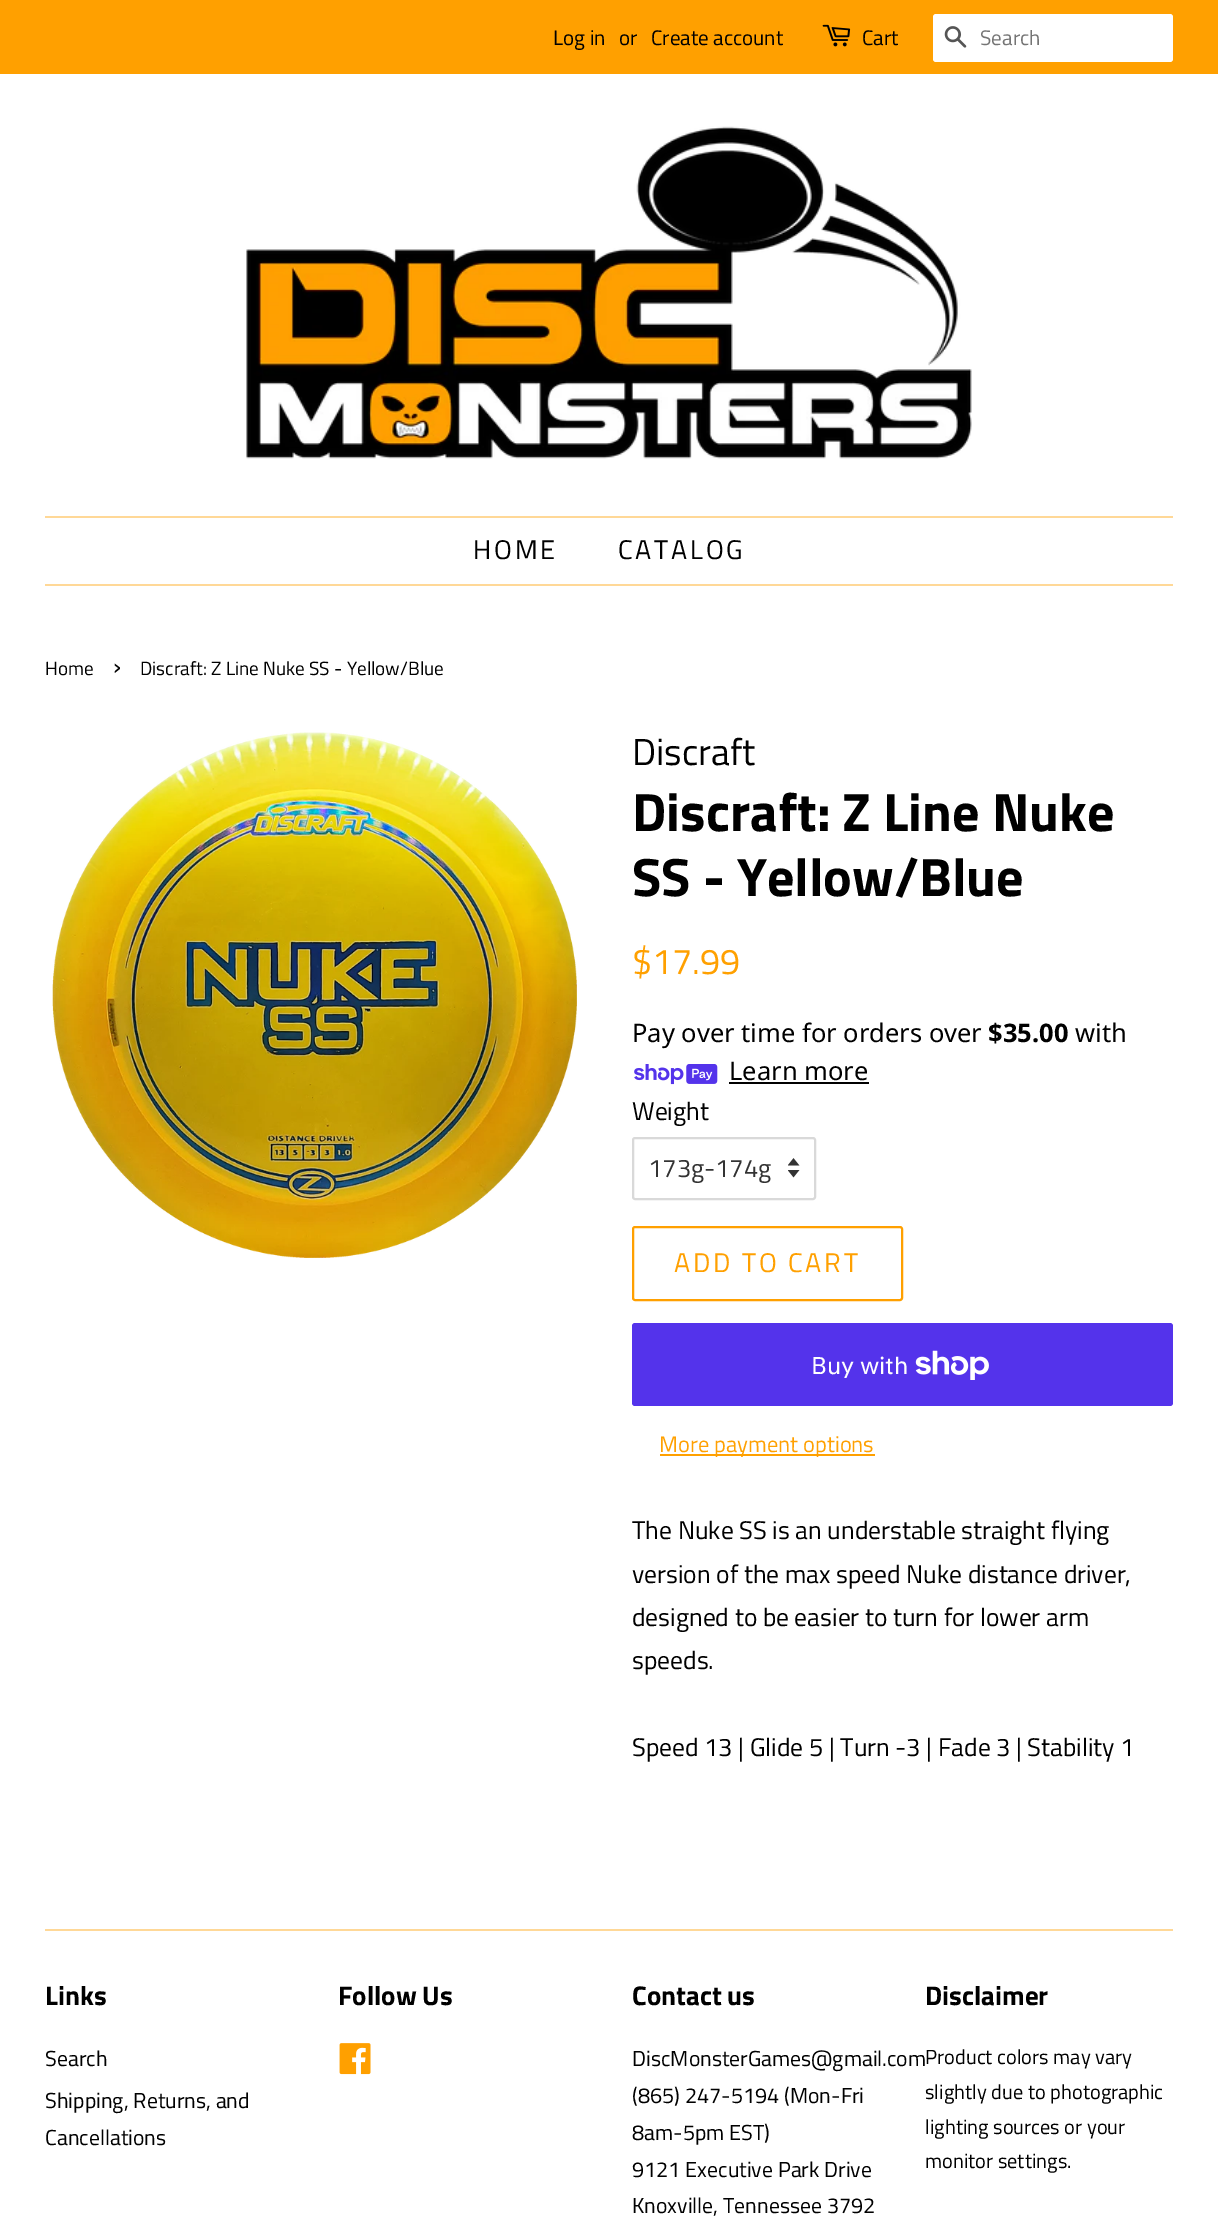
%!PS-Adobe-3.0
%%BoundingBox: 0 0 1218 2223
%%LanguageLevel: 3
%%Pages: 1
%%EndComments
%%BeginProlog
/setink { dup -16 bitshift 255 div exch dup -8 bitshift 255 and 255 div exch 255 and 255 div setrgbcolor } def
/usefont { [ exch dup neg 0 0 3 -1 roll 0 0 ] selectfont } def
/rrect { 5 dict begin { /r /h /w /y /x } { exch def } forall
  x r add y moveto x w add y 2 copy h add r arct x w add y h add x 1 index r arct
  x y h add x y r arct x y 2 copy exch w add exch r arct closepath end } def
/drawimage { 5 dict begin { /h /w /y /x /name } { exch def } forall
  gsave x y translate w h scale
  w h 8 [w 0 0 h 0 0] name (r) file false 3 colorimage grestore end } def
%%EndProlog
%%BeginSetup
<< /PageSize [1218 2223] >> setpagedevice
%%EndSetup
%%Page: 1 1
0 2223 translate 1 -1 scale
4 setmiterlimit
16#FFFFFF setink
0 0 1218 2223 rectfill
16#FFA000 setink
0 0 1218 74 rectfill
/TitilliumWeb-Regular 21 usefont
16#000000 setink
[
    [(Log in) 553 45]
    [(or) 619 45]
    [(Create account) 651 45]
] { aload pop moveto show } forall
(img1.raw) 822 24 29 23 drawimage
862 45 moveto (Cart) show
16#FFFFFF setink
933 14 240 48 3 rrect fill
(img2.raw) 944 26 23 22 drawimage
16#757575 setink
980 45 moveto (Search) show
(img3.raw) 246 126 726 333 drawimage
16#FFD897 setink
45 516 1128 2 rectfill
45 584 1128 2 rectfill
/TitilliumWeb-Regular 27 usefont
16#000000 setink
473 559 moveto 2.75 0 (HOME) ashow
618 559 moveto 2.75 0 (CATALOG) ashow
/TitilliumWeb-Regular 19.1 usefont
45 675 moveto (Home) show
/TitilliumWeb-Regular 27 usefont
113 675 moveto (›) show
/TitilliumWeb-Regular 19.1 usefont
140 675 moveto (Discraft: Z Line Nuke SS - Yellow/Blue) show
(img4.raw) 52 732 525 526 drawimage
/TitilliumWeb-Regular 37.5 usefont
632 765 moveto (Discraft) show
/TitilliumWeb-Bold 54 usefont
632 831 moveto (Discraft: Z Line Nuke) show
632 896 moveto (SS - Yellow/Blue) show
/TitilliumWeb-Regular 36 usefont
16#FFA000 setink
632 974 moveto ($17.99) show
/NotoSans-Regular 25.5 usefont
16#000000 setink
632 1042 moveto (Pay over time for orders over) show
/NotoSans-Bold 25.5 usefont
988 1042 moveto ($35.00) show
/NotoSans-Regular 25.5 usefont
1075 1042 moveto (with) show
(img5.raw) 634 1064 84 21 drawimage
729 1080 moveto (Learn more) show
729 1082 140 2 rectfill
/TitilliumWeb-Regular 25.5 usefont
632 1120 moveto (Weight) show
(img6.raw) 788 1158 12 20 drawimage
16#D9D9D9 setink
2 setlinewidth
633 1138 182 61 2 rrect stroke
16#333333 setink
648 1177 moveto (173g-174g) show
16#FFA000 setink
633 1227 269 73 2 rrect stroke
/TitilliumWeb-Regular 27 usefont
674 1272 moveto 2.75 0 (ADD TO CART) ashow
16#5433EB setink
632 1323 541 83 3 rrect fill
/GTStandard-Regular 24 usefont
16#FFFFFF setink
811 1374 moveto (Buy with) show
(img7.raw) 915 1350 74 30 drawimage
16#FFA000 setink
660 1454 215 2 rectfill
/TitilliumWeb-Regular 22.5 usefont
659 1452 moveto (More payment options) show
/TitilliumWeb-Regular 25.5 usefont
16#000000 setink
[
    [(The Nuke SS is an understable straight flying) 632 1539]
    [(version of the max speed Nuke distance driver,) 632 1583]
    [(designed to be easier to turn for lower arm) 632 1626]
    [(speeds.) 632 1669]
    [(Speed 13 | Glide 5 | Turn -3 | Fade 3 | Stability 1) 632 1756]
] { aload pop moveto show } forall
16#FFD897 setink
45 1929 1128 2 rectfill
/TitilliumWeb-Bold 27 usefont
16#000000 setink
45 2005 moveto (Links) show
/TitilliumWeb-Regular 21.7 usefont
[
    [(Search) 45 2066]
    [(Shipping, Returns, and) 45 2108]
    [(Cancellations) 45 2145]
] { aload pop moveto show } forall
/TitilliumWeb-Bold 27 usefont
338 2005 moveto (Follow Us) show
(img8.raw) 339 2043 32 32 drawimage
632 2005 moveto (Contact us) show
/TitilliumWeb-Regular 21.7 usefont
[
    [(DiscMonsterGames@gmail.com) 632 2066]
    [(\(865\) 247-5194 \(Mon-Fri) 632 2103]
    [(8am-5pm EST\)) 632 2140]
    [(9121 Executive Park Drive) 632 2177]
    [(Knoxville, Tennessee 3792) 632 2213]
] { aload pop moveto show } forall
/TitilliumWeb-Bold 27 usefont
925 2005 moveto (Disclaimer) show
/TitilliumWeb-Regular 20.4 usefont
[
    [(Product colors may vary) 925 2064]
    [(slightly due to photographic) 925 2099]
    [(lighting sources or your) 925 2134]
    [(monitor settings.) 925 2168]
] { aload pop moveto show } forall
showpage
%%EOF
